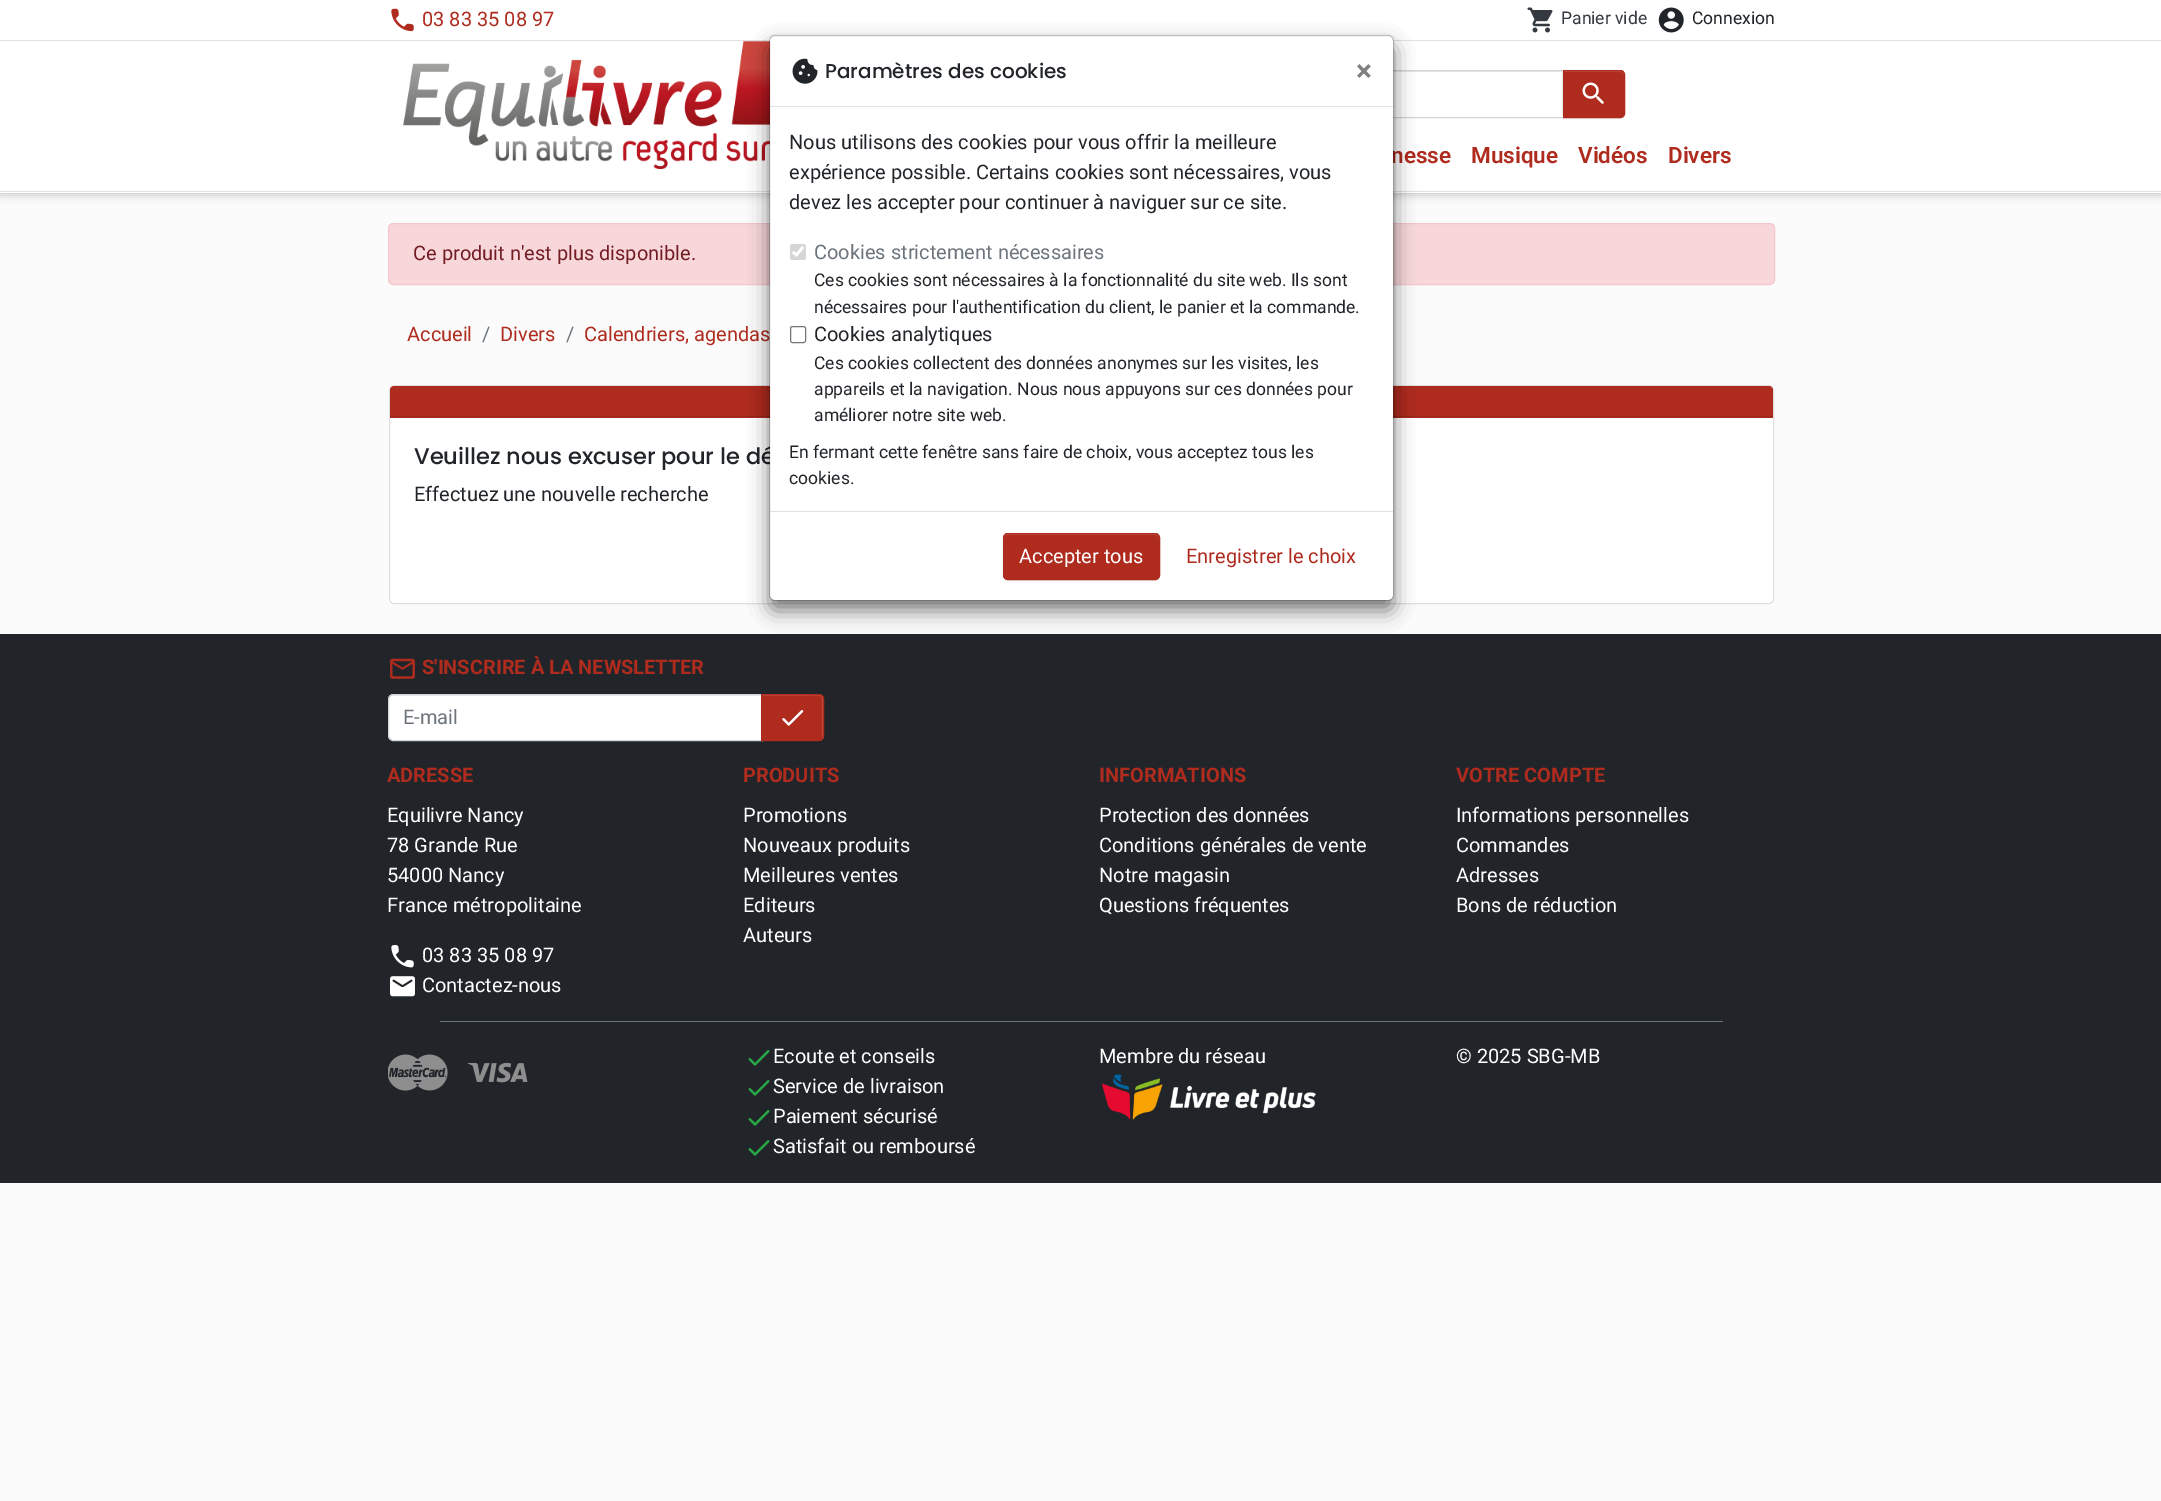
%!PS-Adobe-3.0
%%BoundingBox: 0 0 2161 1501
%%LanguageLevel: 3
%%Pages: 1
%%EndComments
%%BeginProlog
/setink { dup -16 bitshift 255 div exch dup -8 bitshift 255 and 255 div exch 255 and 255 div setrgbcolor } def
/usefont { [ exch dup neg 0 0 3 -1 roll 0 0 ] selectfont } def
/setalpha { dup .setfillconstantalpha .setstrokeconstantalpha } def
/rrect { 5 dict begin { /r /h /w /y /x } { exch def } forall
  x r add y moveto x w add y 2 copy h add r arct x w add y h add x 1 index r arct
  x y h add x y r arct x y 2 copy exch w add exch r arct closepath end } def
/softshadow { 12 dict begin { /a /b /q /h /w /y /x } { exch def } forall gsave /was 0 def
  9 -2 -9 { dup b mul 4 div /e exch def 1 sub .425 mul 2.718 exch exp 1 add a .99 .min exch div /now exch def
    1 1 now sub 1 was sub div sub setalpha /was now def
    w h .min e 2 mul add 0 gt { x e sub y e sub w e 2 mul add h e 2 mul add
      q e add b .6 mul add w h .min 2 div e add .min 0 .max rrect fill } if } for grestore end } def
/drawimage { 5 dict begin { /h /w /y /x /name } { exch def } forall
  gsave x y translate w h scale
  w h 8 [w 0 0 h 0 0] name (r) file false 3 colorimage grestore end } def
%%EndProlog
%%BeginSetup
<< /PageSize [2161 1501] /PageUsesTransparency true >> setpagedevice
%%EndSetup
%%Page: 1 1
0 .pushpdf14devicefilter
0 1501 translate 1 -1 scale
4 setmiterlimit
16#FBFBFB setink
0 0 2161 1501 rectfill
16#000000 setink
0 3 2161 192 0 4 0.2 softshadow
[
    [0 0 2161 193 16#FFFFFF]
    [0 191 2161 1 16#DEE2E6]
    [0 40 2161 1 16#DEE2E6]
] { aload pop setink rectfill } forall
(img1.raw) 391 8 23 24 drawimage
/Roboto-Regular 20 usefont
16#AE2B1E setink
422 26 moveto (03 83 35 08 97) show
(img2.raw) 1527 7 26 26 drawimage
/Roboto-Regular 17.5 usefont
16#343A40 setink
1561 24 moveto (Panier vide) show
(img3.raw) 1658 7 26 26 drawimage
16#212529 setink
1692 24 moveto (Connexion) show
(img4.raw) 403 41 367 129 drawimage
16#ECECEC setink
1068 72 moveto 1562 72 lineto 1562 116 lineto 1563 116 lineto 1563 71 lineto 1068 71 lineto 1065 71 1064 73 1064 76 curveto 1064 74 1065 72 1068 72 curveto closepath fill
16#CED4DA setink
1063.5 70.5 500 47 rectstroke
16#000000 setink
1563 71 62 48 5 0.5 0.07 softshadow
16#AE2B1E setink
1563 70 moveto 1620 70 lineto 1623 70 1625 72 1625 75 curveto 1625 113 lineto 1625 116 1623 118 1620 118 curveto 1563 118 lineto closepath fill
16#BA4B40 setink
1564 72 moveto 1620 72 lineto 1622 72 1624 74 1624 76 curveto 1624 75 lineto 1624 73 1622 71 1620 71 curveto 1564 71 lineto closepath fill
16#AE2B1E setink
1563.5 70.5 moveto 1620 70.5 lineto 1622.5 70.5 1624.5 72.5 1624.5 75 curveto 1624.5 113 lineto 1624.5 115.5 1622.5 117.5 1620 117.5 curveto 1563.5 117.5 lineto closepath stroke
(img5.raw) 1582 82 22 22 drawimage
/Roboto-SemiBold 22.5 usefont
[
    [(nesse) 1391 163]
    [(Musique) 1471 163]
    [(Vidéos) 1578 163]
    [(Divers) 1668 163]
] { aload pop moveto show } forall
16#F8D7DA setink
388.5 223.5 1386 61 4.5 rrect gsave fill grestore
16#F5C6CB setink
stroke
/Roboto-Regular 20 usefont
16#721C24 setink
413 260 moveto (Ce produit n'est plus disponible.) show
16#AE2B1E setink
407 341 moveto (Accueil) show
16#6C757D setink
482 341 moveto (/) show
16#AE2B1E setink
500 341 moveto (Divers) show
16#6C757D setink
566 341 moveto (/) show
16#AE2B1E setink
584 341 moveto (Calendriers, agendas) show
16#FFFFFF setink
389.5 385.5 1384 218 4.5 rrect gsave fill grestore
16#DFDFDF setink
stroke
16#AE2B1E setink
394 386 moveto 1769 386 lineto 1771 386 1773 388 1773 390 curveto 1773 418 lineto 390 418 lineto 390 390 lineto 390 388 392 386 394 386 curveto closepath fill
16#98261A setink
390 416 1383 1 rectfill
/Poppins-Medium 22.5 usefont
16#212529 setink
414 464 moveto (Veuillez nous excuser pour le dé) show
/Roboto-Regular 20 usefont
414 501 moveto (Effectuez une nouvelle recherche) show
0 634 2161 549 rectfill
(img6.raw) 390 658 25 21 drawimage
/Roboto-Bold 20 usefont
16#AE2B1E setink
422 674 moveto (S'INSCRIRE À LA NEWSLETTER) show
16#FFFFFF setink
393 695 moveto 761 695 lineto 761 740 lineto 393 740 lineto 391 740 389 738 389 736 curveto 389 699 lineto 389 697 391 695 393 695 curveto closepath fill
0.07 setalpha
16#000000 setink
392 696 moveto 761 696 lineto 761 695 lineto 393 695 lineto 390 695 389 697 389 700 curveto 389 698 390 696 392 696 curveto closepath fill
1 setalpha
16#CED4DA setink
393 694.5 moveto 762.5 694.5 lineto 762.5 740.5 lineto 393 740.5 lineto 390.5 740.5 388.5 738.5 388.5 736 curveto 388.5 699 lineto 388.5 696.5 390.5 694.5 393 694.5 curveto closepath stroke
/Roboto-Regular 20 usefont
16#6C757D setink
403 724 moveto (E-mail) show
16#000000 setink
761 695 63 48 5 0.5 0.07 softshadow
16#AE2B1E setink
761 694 moveto 819 694 lineto 822 694 824 696 824 699 curveto 824 736 lineto 824 739 822 741 819 741 curveto 761 741 lineto closepath fill
16#BA4B40 setink
763 695 moveto 763 696 lineto 800 696 lineto 825 696 822 691 822 713 curveto 822 739 lineto 823 738 823 737 823 736 curveto 823 699 lineto 823 697 821 695 819 695 curveto closepath fill
16#AE2B1E setink
761.5 694.5 moveto 819 694.5 lineto 821.5 694.5 823.5 696.5 823.5 699 curveto 823.5 736 lineto 823.5 738.5 821.5 740.5 819 740.5 curveto 761.5 740.5 lineto closepath stroke
(img7.raw) 782 710 22 16 drawimage
/Roboto-Bold 20 usefont
387 782 moveto (ADRESSE) show
/Roboto-Regular 20 usefont
16#FFFFFF setink
[
    [(Equilivre Nancy) 387 822]
    [(78 Grande Rue) 387 852]
    [(54000 Nancy) 387 882]
    [(France métropolitaine) 387 912]
] { aload pop moveto show } forall
(img8.raw) 391 945 23 23 drawimage
422 962 moveto (03 83 35 08 97) show
(img9.raw) 390 976 25 21 drawimage
422 992 moveto (Contactez-nous) show
/Roboto-Bold 20 usefont
16#AE2B1E setink
743 782 moveto (PRODUITS) show
/Roboto-Regular 20 usefont
16#FFFFFF setink
[
    [(Promotions) 743 822]
    [(Nouveaux produits) 743 852]
    [(Meilleures ventes) 743 882]
    [(Editeurs) 743 912]
    [(Auteurs) 743 942]
] { aload pop moveto show } forall
/Roboto-Bold 20 usefont
16#AE2B1E setink
1099 782 moveto (INFORMATIONS) show
/Roboto-Regular 20 usefont
16#FFFFFF setink
[
    [(Protection des données) 1099 822]
    [(Conditions générales de vente) 1099 852]
    [(Notre magasin) 1099 882]
    [(Questions fréquentes) 1099 912]
] { aload pop moveto show } forall
/Roboto-Bold 20 usefont
16#AE2B1E setink
1456 782 moveto (VOTRE COMPTE) show
/Roboto-Regular 20 usefont
16#FFFFFF setink
[
    [(Informations personnelles) 1456 822]
    [(Commandes) 1456 852]
    [(Adresses) 1456 882]
    [(Bons de réduction) 1456 912]
] { aload pop moveto show } forall
16#6C757D setink
440 1021 1283 1 rectfill
(img10.raw) 388 1054 60 37 drawimage
(img11.raw) 468 1062 60 21 drawimage
(img12.raw) 748 1050 22 16 drawimage
16#FFFFFF setink
773 1063 moveto (Ecoute et conseils) show
(img12.raw) 748 1080 22 16 drawimage
773 1093 moveto (Service de livraison) show
(img12.raw) 748 1110 22 16 drawimage
773 1123 moveto (Paiement sécurisé) show
(img12.raw) 748 1140 22 16 drawimage
773 1153 moveto (Satisfait ou remboursé) show
1099 1063 moveto (Membre du réseau) show
(img13.raw) 1102 1074 214 46 drawimage
1456 1063 moveto (© 2025 SBG-MB) show
16#000000 setink
769 45 625 566 6 10 0.5 softshadow
16#FFFFFF setink
770 36 623 564 5 rrect fill
0.2 setalpha
16#000000 setink
769.5 35.5 624 565 5.5 rrect stroke
1 setalpha
16#DEE2E6 setink
770 106 623 1 rectfill
(img14.raw) 792 58 26 26 drawimage
/Poppins-Medium 20 usefont
16#212529 setink
825 78 moveto (Paramètres des cookies) show
/Roboto-Bold 30 usefont
16#808080 setink
1356 81 moveto (×) show
/Roboto-Regular 20 usefont
16#212529 setink
[
    [(Nous utilisons des cookies pour vous offrir la meilleure) 789 149]
    [(expérience possible. Certains cookies sont nécessaires, vous) 789 179]
    [(devez les accepter pour continuer à naviguer sur ce site.) 789 209]
] { aload pop moveto show } forall
16#D6D6D6 setink
790 244 16 16 2.5 rrect fill
16#FFFFFF setink
2.6 setlinewidth
793 252 moveto 796.5 255 lineto 803 247 lineto stroke
16#6C757D setink
814 259 moveto (Cookies strictement nécessaires) show
/Roboto-Regular 17.5 usefont
16#212529 setink
814 286 moveto (Ces cookies sont nécessaires à la fonctionnalité du site web. Ils sont) show
814 313 moveto (nécessaires pour l'authentification du client, le panier et la commande.) show
16#767676 setink
1 setlinewidth
790.5 326.5 15 16 2 rrect stroke
/Roboto-Regular 20 usefont
16#212529 setink
814 341 moveto (Cookies analytiques) show
/Roboto-Regular 17.5 usefont
[
    [(Ces cookies collectent des données anonymes sur les visites, les) 814 369]
    [(appareils et la navigation. Nous nous appuyons sur ces données pour) 814 395]
    [(améliorer notre site web.) 814 421]
    [(En fermant cette fenêtre sans faire de choix, vous acceptez tous les) 789 458]
    [(cookies.) 789 484]
] { aload pop moveto show } forall
16#DEE2E6 setink
770 511 623 1 rectfill
16#000000 setink
1003 534 157 47 5 0.5 0.07 softshadow
16#AE2B1E setink
1003 533 157 47 5 rrect fill
16#BA4B40 setink
1008 535 moveto 1155 535 lineto 1157 535 1159 537 1159 539 curveto 1159 537 1158 535 1156 534 curveto 1007 534 lineto 1005 535 1004 537 1004 539 curveto 1004 537 1005 535 1008 535 curveto closepath fill
16#AE2B1E setink
1003.5 533.5 156 46 4.5 rrect stroke
/Roboto-Regular 20 usefont
16#FFFFFF setink
1019 563 moveto (Accepter tous) show
16#AE2B1E setink
1186 563 moveto (Enregistrer le choix) show
.poppdf14devicefilter showpage
%%EOF
